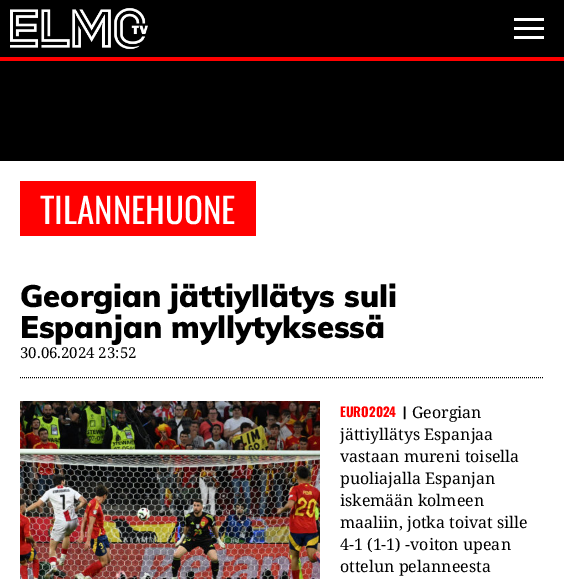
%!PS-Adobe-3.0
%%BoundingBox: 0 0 564 579
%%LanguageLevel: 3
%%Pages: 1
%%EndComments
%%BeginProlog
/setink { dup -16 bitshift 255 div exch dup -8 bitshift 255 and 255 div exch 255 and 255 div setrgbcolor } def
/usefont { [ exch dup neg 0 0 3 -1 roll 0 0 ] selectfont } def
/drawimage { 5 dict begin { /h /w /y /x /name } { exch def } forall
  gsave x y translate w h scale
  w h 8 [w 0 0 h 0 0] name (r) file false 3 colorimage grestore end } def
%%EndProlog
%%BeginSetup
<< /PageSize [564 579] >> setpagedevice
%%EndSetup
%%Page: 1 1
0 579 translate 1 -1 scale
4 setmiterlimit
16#000000 setink
0 0 564 579 rectfill
16#FF0000 setink
0 57 564 4 rectfill
(img1.raw) 10 8 138 42 drawimage
[
    [514 18 30 3 16#FFFFFF]
    [514 27 30 3 16#FFFFFF]
    [514 36 30 3 16#FFFFFF]
    [0 161 564 418 16#FFFFFF]
    [20 181 236 55 16#FF0000]
] { aload pop setink rectfill } forall
/Oswald-Regular 35 usefont
16#FFFFFF setink
40 224 moveto (TILANNEHUONE) show
/Muli-Black 31 usefont
16#000000 setink
20 307 moveto (Georgian jättiyllätys suli) show
20 338 moveto (Espanjan myllytyksessä) show
[1 1] 0 setdash
20 377.5 moveto 544 377.5 lineto stroke
/NotoSerif-Regular 15 usefont
20 358 moveto (30.06.2024 23:52) show
(img2.raw) 20 401 300 178 drawimage
/NotoSerif-Regular 16 usefont
[
    [(Georgian) 412 418]
    [(jättiyllätys Espanjaa) 340 440]
    [(vastaan mureni toisella) 340 462]
    [(puoliajalla Espanjan) 340 484]
    [(iskemään kolmeen) 340 506]
    [(maaliin, jotka toivat sille) 340 528]
    [(4-1 \(1-1\) -voiton upean) 340 550]
    [(ottelun pelanneesta) 340 572]
] { aload pop moveto show } forall
/Oswald-Bold 13 usefont
16#FF0000 setink
340 417 moveto (EURO2024) show
16#000000 setink
403 417 moveto (|) show
showpage
%%EOF
